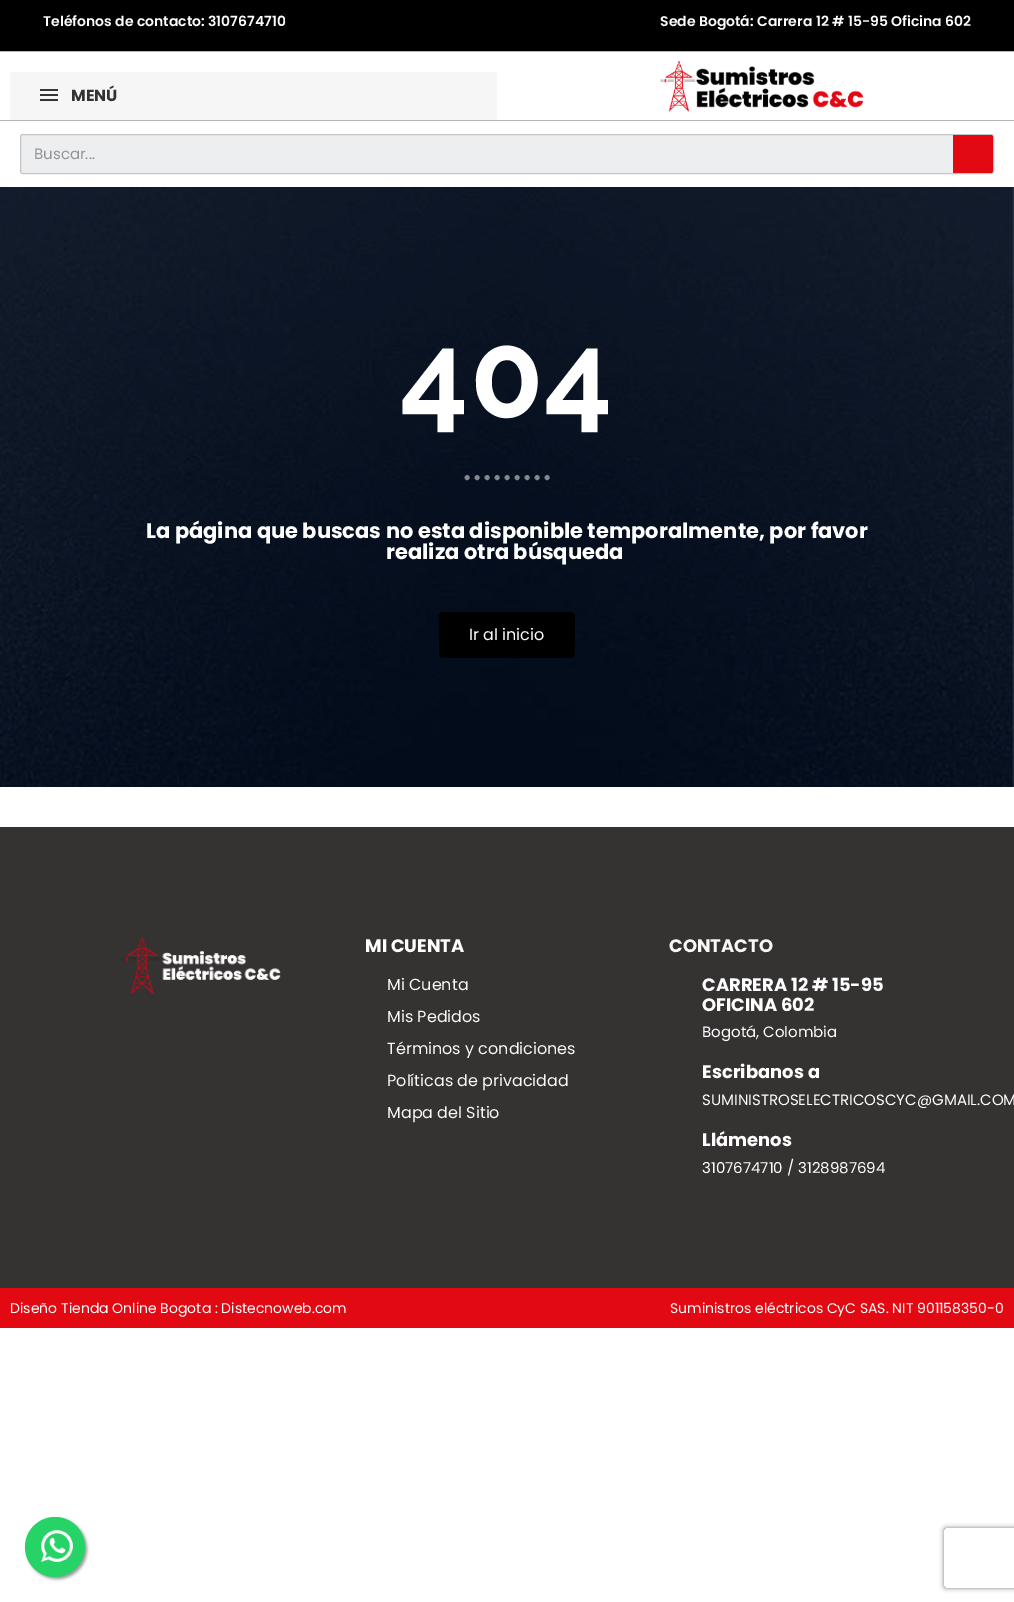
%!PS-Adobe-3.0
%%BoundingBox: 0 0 1014 1602
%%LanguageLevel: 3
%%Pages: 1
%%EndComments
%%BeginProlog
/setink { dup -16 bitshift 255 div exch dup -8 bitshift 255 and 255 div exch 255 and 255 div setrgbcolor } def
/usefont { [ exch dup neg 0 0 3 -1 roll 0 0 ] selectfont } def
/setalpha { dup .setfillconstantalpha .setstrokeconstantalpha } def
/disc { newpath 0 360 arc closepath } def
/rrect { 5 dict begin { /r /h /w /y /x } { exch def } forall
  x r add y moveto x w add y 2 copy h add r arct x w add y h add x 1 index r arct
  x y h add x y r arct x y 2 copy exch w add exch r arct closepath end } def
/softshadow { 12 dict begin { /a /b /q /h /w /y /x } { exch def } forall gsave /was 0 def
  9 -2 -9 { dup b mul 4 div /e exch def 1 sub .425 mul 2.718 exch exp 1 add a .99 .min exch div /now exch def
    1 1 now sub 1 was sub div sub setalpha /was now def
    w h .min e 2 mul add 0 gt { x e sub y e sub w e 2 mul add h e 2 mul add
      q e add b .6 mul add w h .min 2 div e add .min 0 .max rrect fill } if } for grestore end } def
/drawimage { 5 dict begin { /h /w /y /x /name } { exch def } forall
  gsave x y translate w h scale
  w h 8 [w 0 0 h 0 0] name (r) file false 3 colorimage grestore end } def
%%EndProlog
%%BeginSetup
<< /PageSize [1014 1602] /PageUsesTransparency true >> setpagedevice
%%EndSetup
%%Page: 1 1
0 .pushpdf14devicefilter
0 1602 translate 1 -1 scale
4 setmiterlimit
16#FFFFFF setink
0 0 1014 1602 rectfill
16#000000 setink
0 0 1014 51 rectfill
/Poppins-SemiBold 14 usefont
16#FFFFFF setink
43 26 moveto (Teléfonos de contacto: 3107674710) show
16#0D0D0D setink
285 13 1 16 rectfill
16#FFFFFF setink
660 26 moveto (Sede Bogotá: Carrera 12 # 15-95 Oficina 602) show
[
    [0 51 1014 1 16#B7B5B5]
    [0 120 1014 1 16#B7B5B5]
    [10 72 487 48 16#F6F6F6]
    [40 89 18 2 16#333333]
    [40 94 18 2 16#333333]
    [40 99 18 2 16#333333]
] { aload pop setink rectfill } forall
/Poppins-Bold 16 usefont
71 101 moveto (MENÚ) show
(img1.raw) 660 60 204 52 drawimage
16#ECEEEF setink
20.5 134.5 973 39 2.5 rrect gsave fill grestore
16#C4C4C4 setink
stroke
/Poppins-Regular 15 usefont
16#919597 setink
34 159 moveto (Buscar...) show
16#E20913 setink
953 135 moveto 991 135 lineto 992 135 993 136 993 137 curveto 993 171 lineto 993 172 992 173 991 173 curveto 953 173 lineto closepath fill
(img2.raw) 0 187 1014 600 drawimage
/Raleway-Bold 120 usefont
16#FFFFFF setink
400 417 moveto 1 0 (404) ashow
0.5 setalpha
5 setlinewidth
1 setlinecap
[0 10] 0 setdash
467 477.5 moveto 547 477.5 lineto stroke
/Poppins-Bold 21 usefont
1 setalpha
146 538 moveto (La página que buscas no esta disponible temporalmente, por favor) show
386 559 moveto (realiza otra búsqueda) show
16#000000 setink
439 612 136 46 4 rrect fill
/Poppins-Regular 16 usefont
16#FFFFFF setink
469 640 moveto (Ir al inicio) show
16#353232 setink
0 827 1014 461 rectfill
(img3.raw) 121 937 160 57 drawimage
/Poppins-Bold 18 usefont
16#FFFFFF setink
365 952 moveto (MI CUENTA) show
/Poppins-Regular 16 usefont
16#F8F8F8 setink
[
    [(Mi Cuenta) 387 990]
    [(Mis Pedidos) 387 1022]
    [(Términos y condiciones) 387 1054]
    [(Políticas de privacidad) 387 1086]
    [(Mapa del Sitio) 387 1118]
] { aload pop moveto show } forall
/Poppins-Bold 18 usefont
669 952 moveto (CONTACTO) show
16#FFFFFF setink
702 991 moveto (CARRERA 12 # 15-95) show
702 1011 moveto (OFICINA 602) show
/Poppins-Regular 15 usefont
702 1037 moveto (Bogotá, Colombia) show
/Poppins-Bold 18 usefont
702 1078 moveto (Escribanos a) show
/Poppins-Regular 15 usefont
702 1105 moveto (SUMINISTROSELECTRICOSCYC@GMAIL.COM) show
/Poppins-Bold 18 usefont
702 1146 moveto (Llámenos) show
/Poppins-Regular 15 usefont
702 1173 moveto (3107674710 / 3128987694) show
16#E20913 setink
0 1288 1014 40 rectfill
/Poppins-Regular 14 usefont
16#FFFFFF setink
10 1313 moveto (Diseño Tienda Online Bogota : Distecnoweb.com) show
670 1313 moveto (Suministros eléctricos CyC SAS. NIT 901158350-0) show
16#999999 setink
27 1519 60 60 30 1.5 1 softshadow
16#25D366 setink
55 1547 30 disc fill
(img4.raw) 41 1530 32 32 drawimage
gsave
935 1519 moveto 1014 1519 lineto 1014 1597 lineto 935 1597 lineto closepath 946 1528 moveto 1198 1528 lineto 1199 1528 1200 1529 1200 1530 curveto 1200 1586 lineto 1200 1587 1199 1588 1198 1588 curveto 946 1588 lineto 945 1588 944 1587 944 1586 curveto 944 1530 lineto 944 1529 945 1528 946 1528 curveto closepath eoclip newpath
16#808080 setink
944 1528 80 60 2 2.5 1 softshadow
grestore
.poppdf14devicefilter showpage
%%EOF
